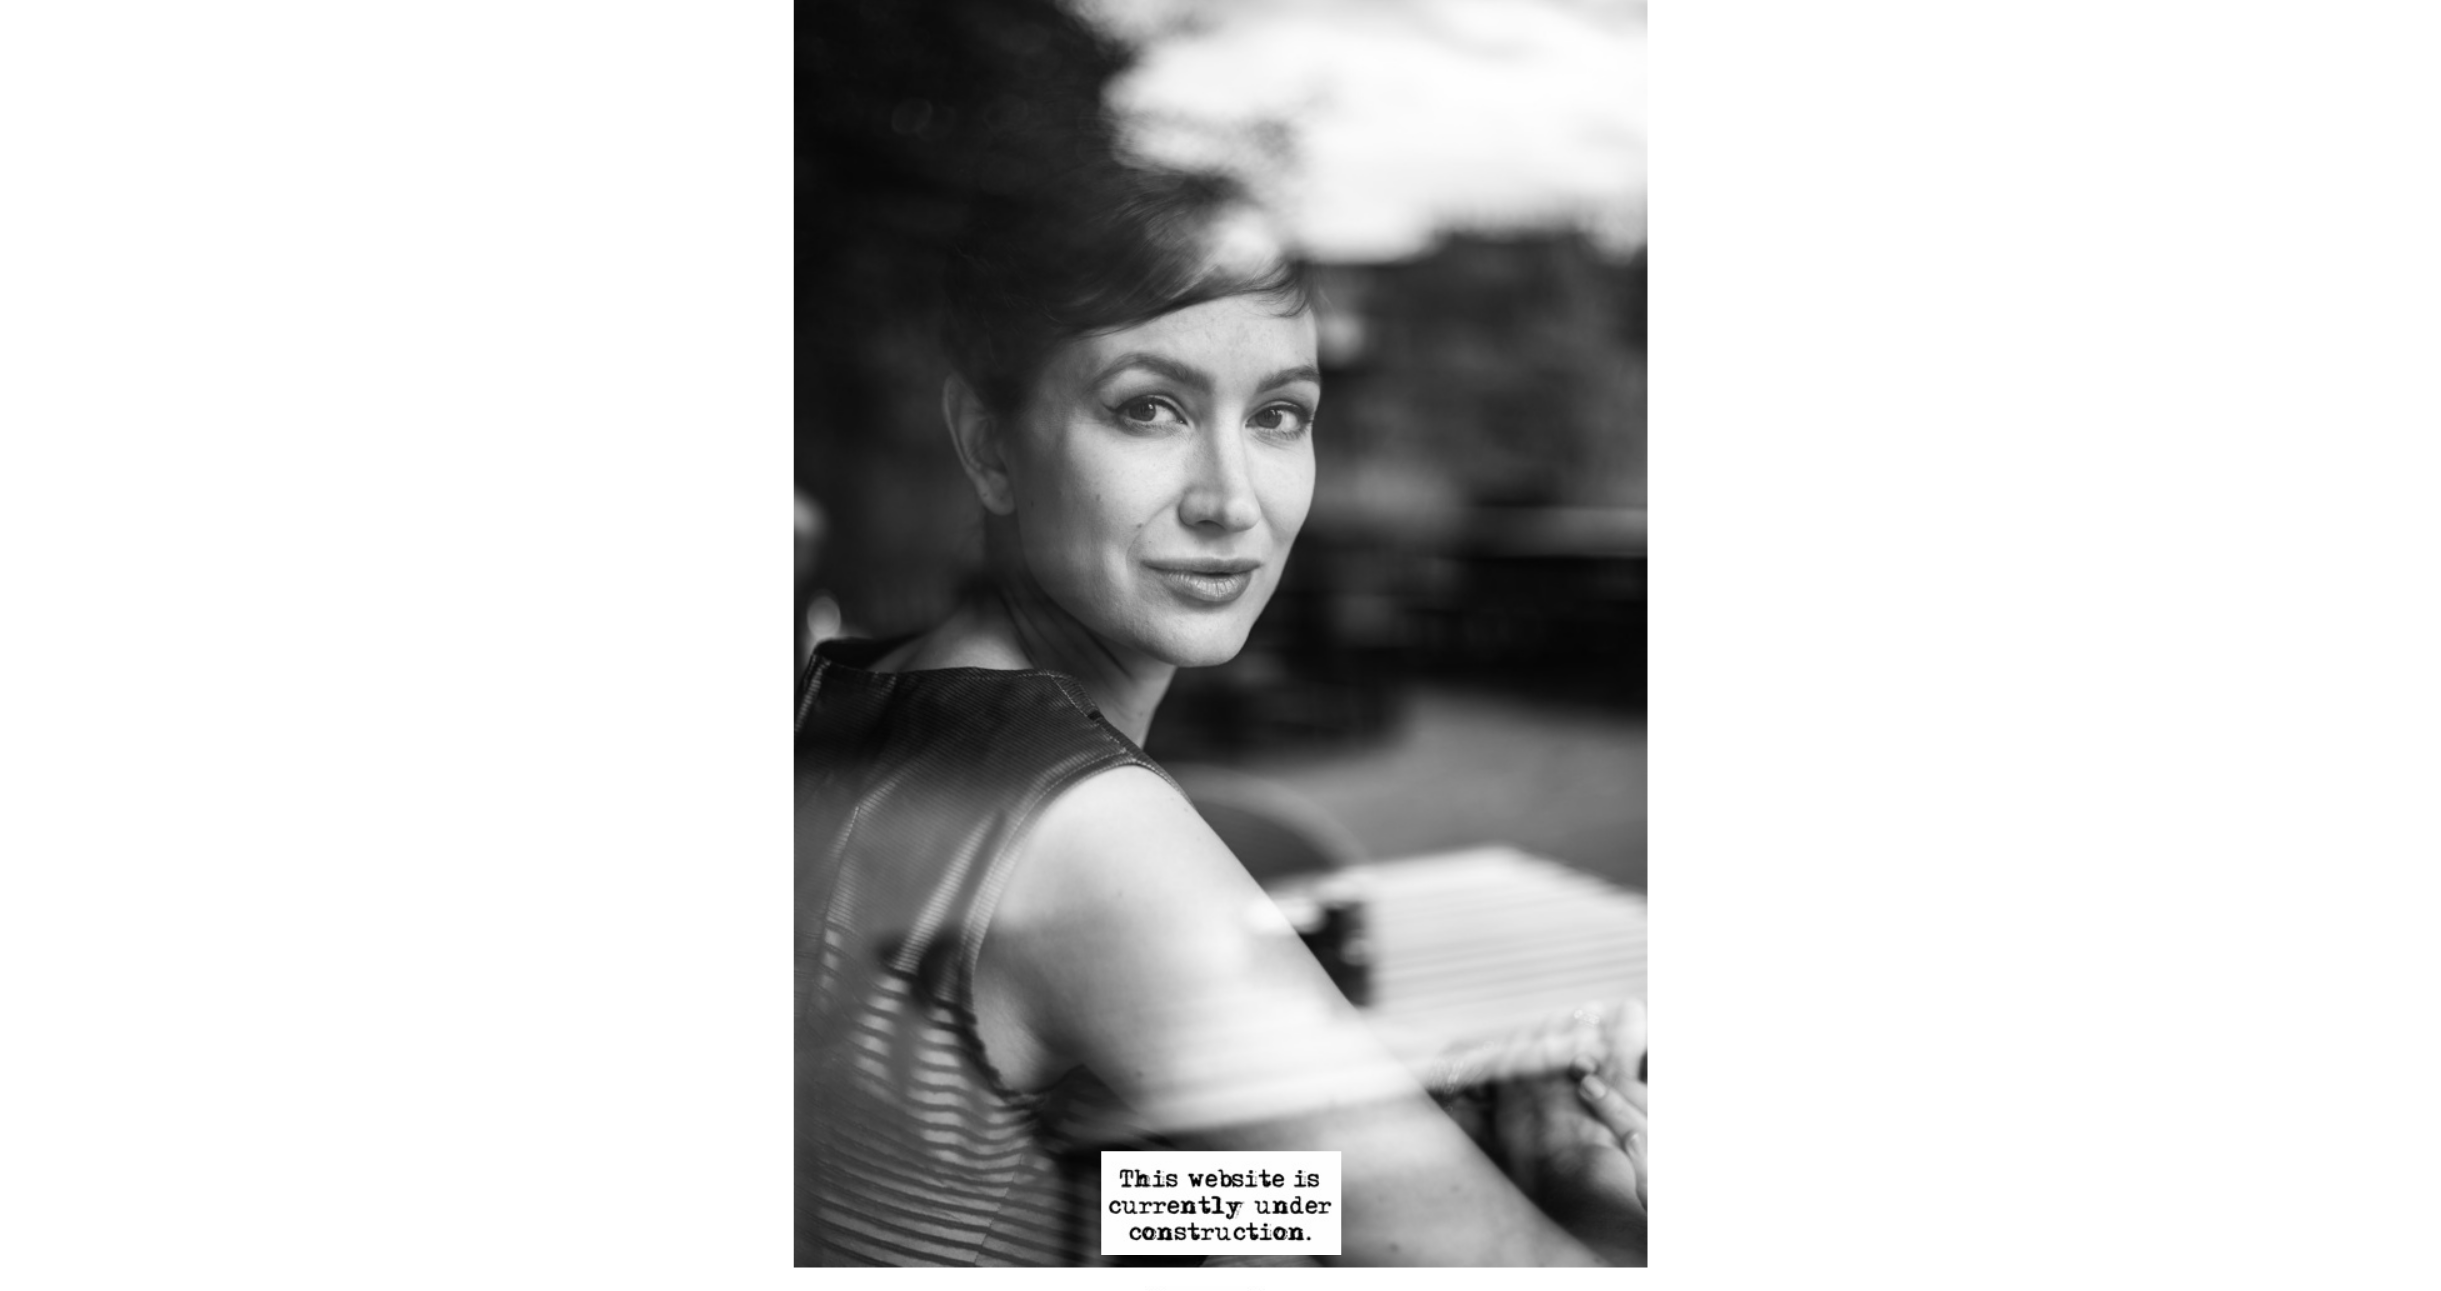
%!PS-Adobe-3.0
%%BoundingBox: 0 0 2441 1291
%%LanguageLevel: 3
%%Pages: 1
%%EndComments
%%BeginProlog
/setink { dup -16 bitshift 255 div exch dup -8 bitshift 255 and 255 div exch 255 and 255 div setrgbcolor } def
/drawimage { 5 dict begin { /h /w /y /x /name } { exch def } forall
  gsave x y translate w h scale
  w h 8 [w 0 0 h 0 0] name (r) file false 3 colorimage grestore end } def
%%EndProlog
%%BeginSetup
<< /PageSize [2441 1291] >> setpagedevice
%%EndSetup
%%Page: 1 1
0 1291 translate 1 -1 scale
4 setmiterlimit
16#FFFFFF setink
0 0 2441 1291 rectfill
(img1.raw) 793 0 855 1268 drawimage
(img2.raw) 1101 1151 241 104 drawimage
(img3.raw) 1145 1286 120 5 drawimage
showpage
%%EOF
